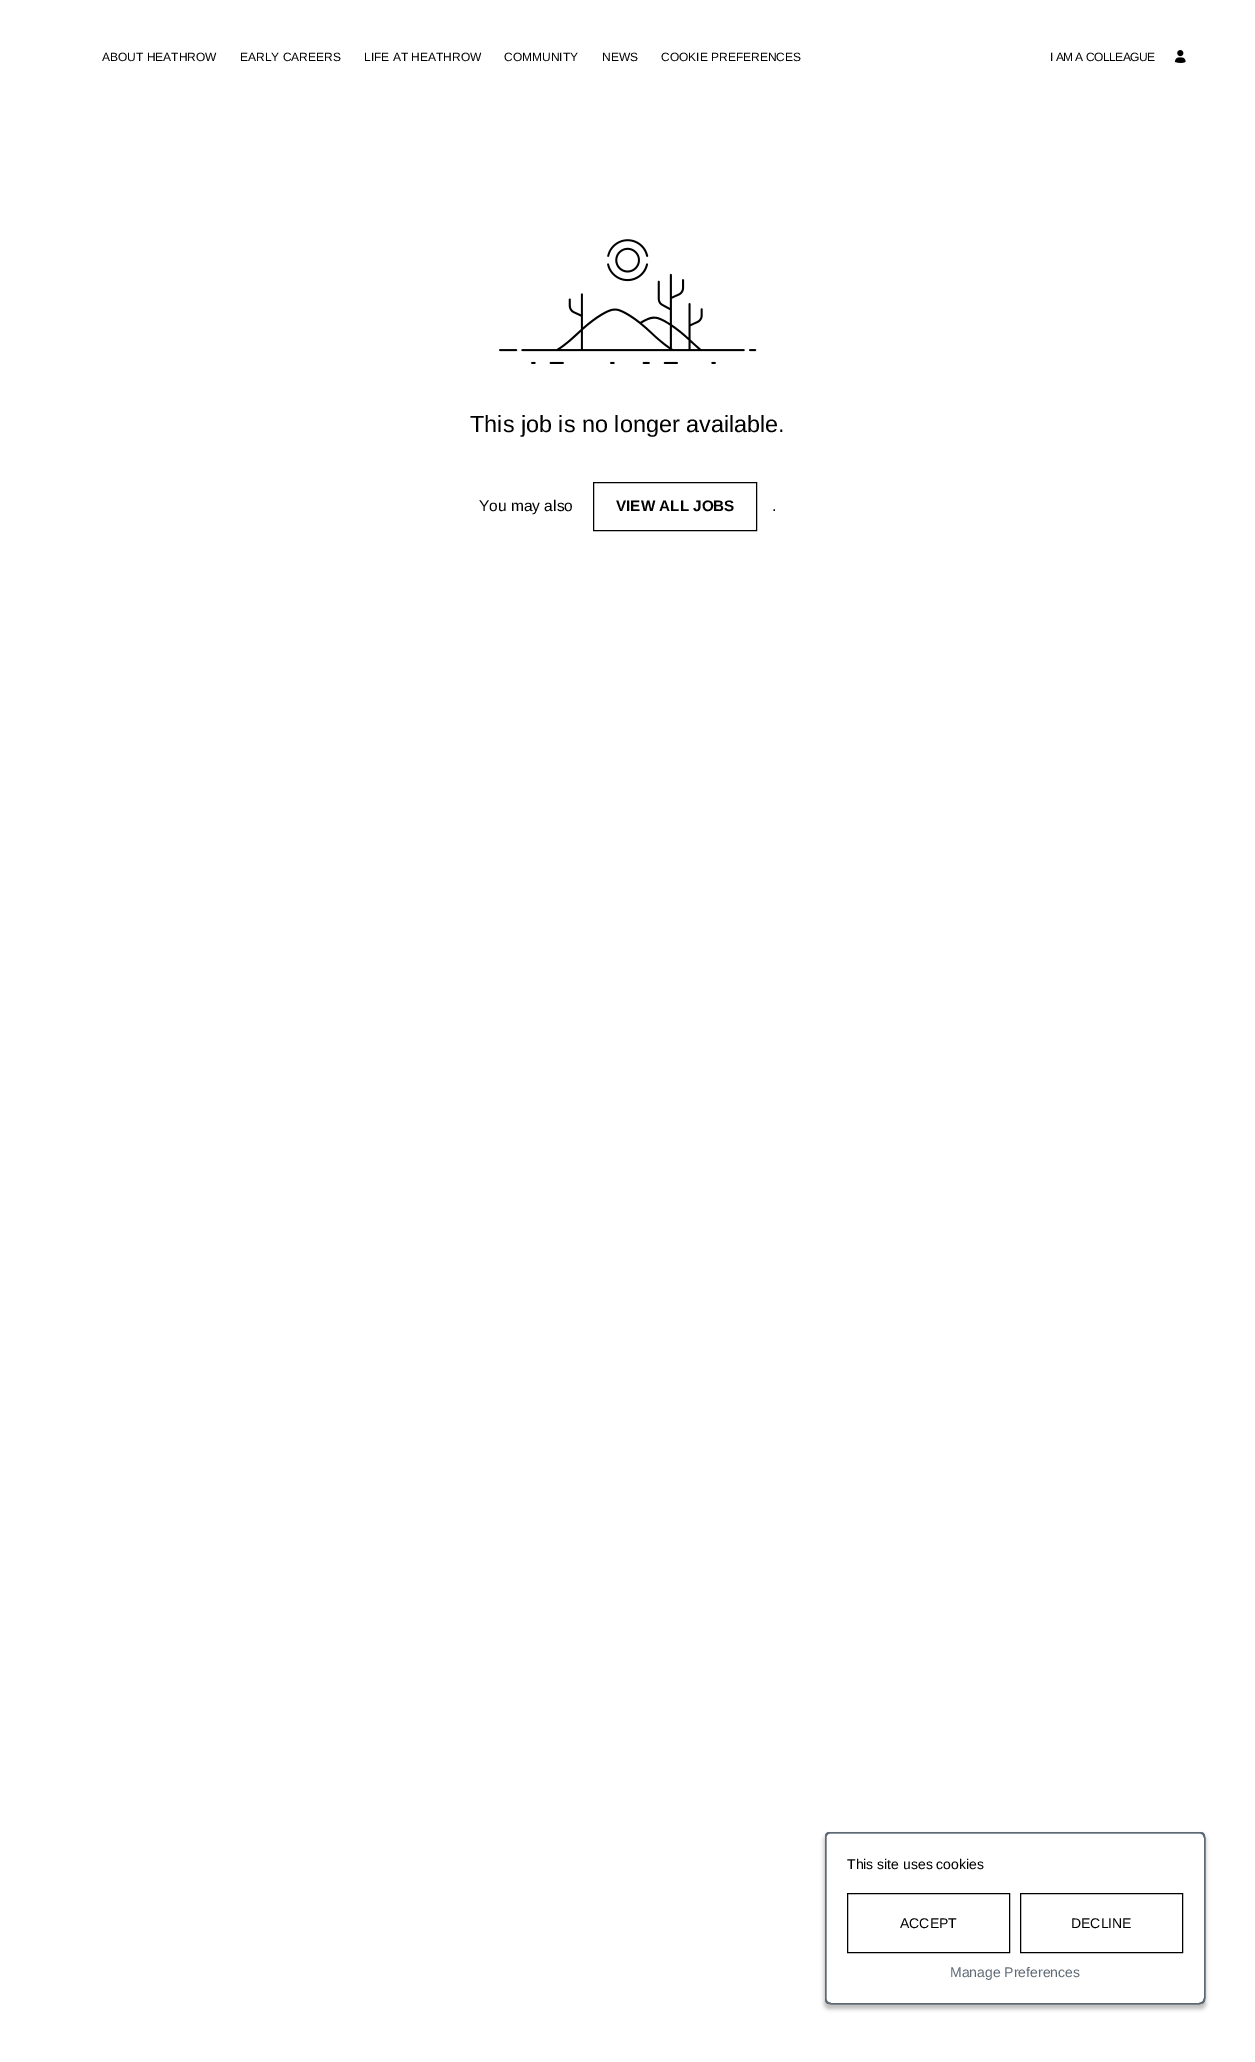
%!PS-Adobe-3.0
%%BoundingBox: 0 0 1255 2062
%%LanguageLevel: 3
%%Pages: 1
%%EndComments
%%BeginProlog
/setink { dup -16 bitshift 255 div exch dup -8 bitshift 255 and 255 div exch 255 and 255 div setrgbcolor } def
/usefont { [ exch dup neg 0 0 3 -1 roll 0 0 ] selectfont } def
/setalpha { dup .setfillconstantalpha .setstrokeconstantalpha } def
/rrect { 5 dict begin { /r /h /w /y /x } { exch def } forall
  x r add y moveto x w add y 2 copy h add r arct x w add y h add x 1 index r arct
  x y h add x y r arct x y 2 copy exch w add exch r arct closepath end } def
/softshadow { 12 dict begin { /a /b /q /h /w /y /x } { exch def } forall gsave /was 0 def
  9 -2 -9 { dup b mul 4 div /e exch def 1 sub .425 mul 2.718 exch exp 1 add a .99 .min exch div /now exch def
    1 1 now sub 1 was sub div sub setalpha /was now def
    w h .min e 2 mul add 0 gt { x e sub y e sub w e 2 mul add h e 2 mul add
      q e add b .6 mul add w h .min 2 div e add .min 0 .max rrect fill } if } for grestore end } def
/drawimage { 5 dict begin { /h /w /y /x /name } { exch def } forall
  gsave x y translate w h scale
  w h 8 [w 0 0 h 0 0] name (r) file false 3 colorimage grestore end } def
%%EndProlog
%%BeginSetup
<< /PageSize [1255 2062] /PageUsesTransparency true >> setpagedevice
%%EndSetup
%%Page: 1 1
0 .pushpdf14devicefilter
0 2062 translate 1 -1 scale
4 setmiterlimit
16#FFFFFF setink
0 0 1255 2062 rectfill
/LiberationSans-Regular 12 usefont
16#000000 setink
[
    [(ABOUT HEATHROW) 102 61]
    [(EARLY CAREERS) 240 61]
    [(LIFE AT HEATHROW) 364 61]
    [(COMMUNITY) 504 61]
    [(NEWS) 602 61]
    [(COOKIE PREFERENCES) 661 61]
] { aload pop moveto show } forall
1050 61 moveto -0.5 0 (I AM A COLLEAGUE) ashow
(img1.raw) 1175 50 11 13 drawimage
(img2.raw) 499 239 258 125 drawimage
/LiberationSans-Regular 23.4 usefont
470 432 moveto (This job is no longer available.) show
/LiberationSans-Regular 15.5 usefont
479 511 moveto (You may also) show
593.5 482.5 163 48 rectstroke
/LiberationSans-Bold 15.25 usefont
616 511 moveto (VIEW ALL JOBS) show
/LiberationSans-Regular 15.5 usefont
772 511 moveto (.) show
824 1835 382 174 5 2 0.25 softshadow
16#FFFFFF setink
825.5 1832.5 379 171 3.5 rrect gsave fill grestore
16#5D6974 setink
stroke
825.5 1832.5 379 171 5.5 rrect stroke
825.5 1832.5 379 171 5.5 rrect stroke
825.5 1832.5 379 171 5.5 rrect stroke
/LiberationSans-Regular 14 usefont
16#000000 setink
847 1869 moveto (This site uses cookies) show
847.5 1893.5 162 59 rectstroke
900 1928 moveto (ACCEPT) show
1020.5 1893.5 162 59 rectstroke
1071 1928 moveto (DECLINE) show
16#5D6974 setink
950 1977 moveto (Manage Preferences) show
.poppdf14devicefilter showpage
%%EOF
